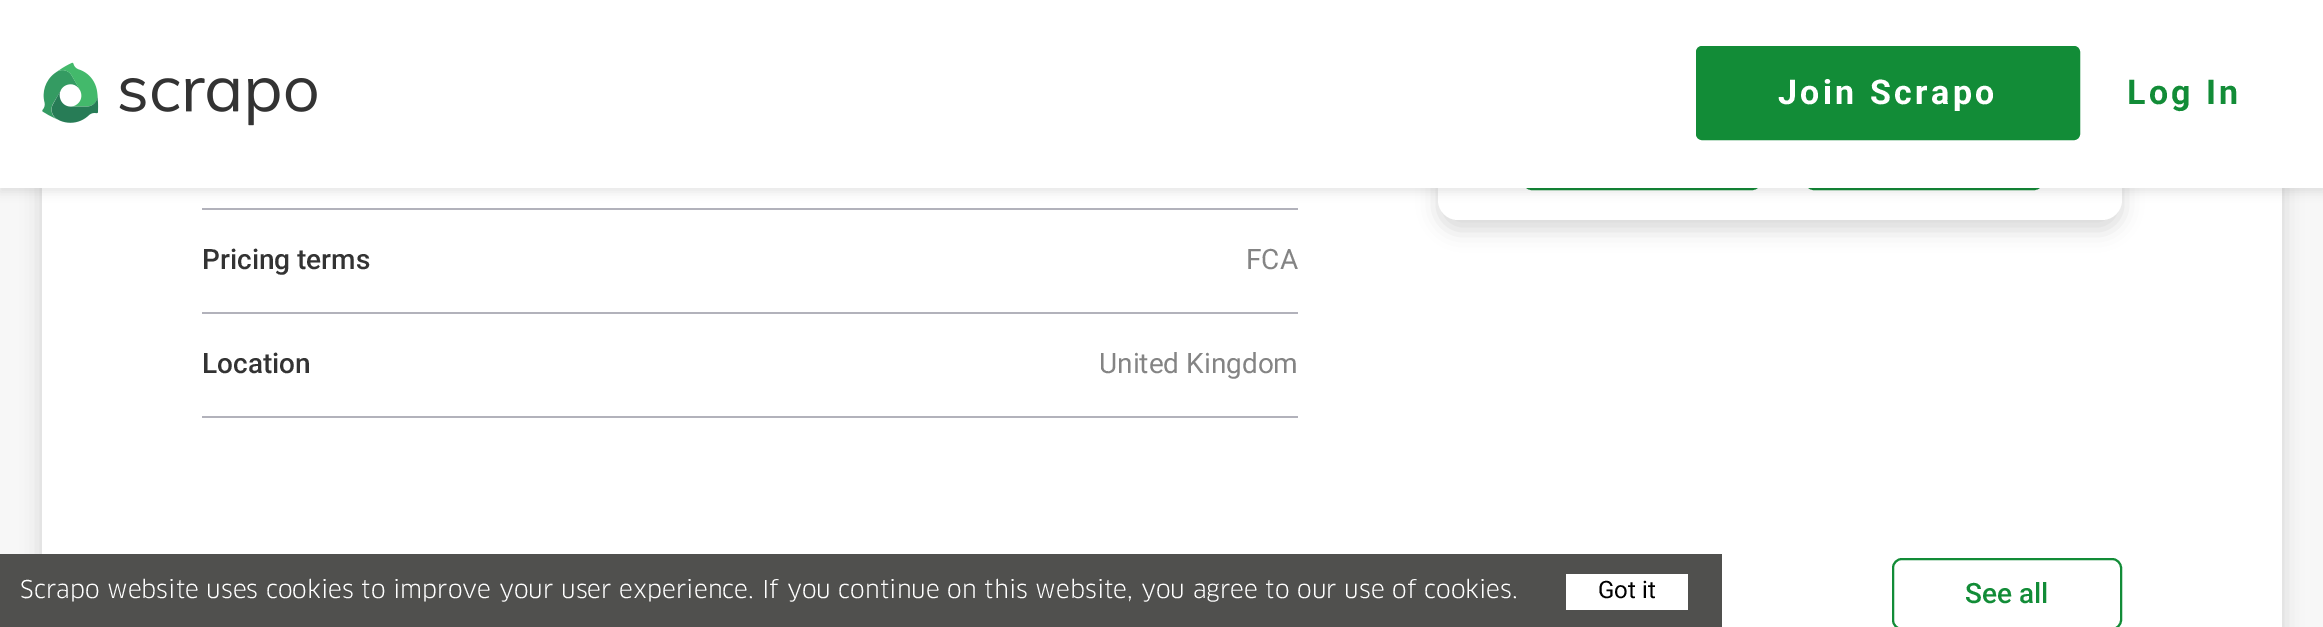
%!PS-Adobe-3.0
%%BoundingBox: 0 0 2323 627
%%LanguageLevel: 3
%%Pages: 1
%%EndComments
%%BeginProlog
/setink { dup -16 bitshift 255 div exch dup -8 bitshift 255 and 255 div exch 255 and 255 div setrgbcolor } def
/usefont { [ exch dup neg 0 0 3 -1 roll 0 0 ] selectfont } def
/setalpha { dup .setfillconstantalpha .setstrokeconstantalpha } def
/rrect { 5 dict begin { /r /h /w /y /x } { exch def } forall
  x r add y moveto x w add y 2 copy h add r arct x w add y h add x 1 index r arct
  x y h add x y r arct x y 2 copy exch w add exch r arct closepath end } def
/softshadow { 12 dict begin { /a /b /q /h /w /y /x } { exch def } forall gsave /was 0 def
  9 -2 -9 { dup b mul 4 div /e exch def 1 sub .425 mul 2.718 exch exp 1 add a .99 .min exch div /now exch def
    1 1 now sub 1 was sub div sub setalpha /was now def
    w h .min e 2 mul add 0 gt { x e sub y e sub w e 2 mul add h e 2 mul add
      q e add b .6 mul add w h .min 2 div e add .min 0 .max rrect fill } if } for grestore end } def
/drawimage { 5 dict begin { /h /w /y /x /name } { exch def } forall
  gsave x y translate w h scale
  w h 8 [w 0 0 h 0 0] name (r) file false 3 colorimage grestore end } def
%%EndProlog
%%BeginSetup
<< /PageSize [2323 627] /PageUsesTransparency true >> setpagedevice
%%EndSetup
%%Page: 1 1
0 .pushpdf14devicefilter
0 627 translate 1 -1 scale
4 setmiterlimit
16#F7F7F7 setink
0 0 2323 627 rectfill
16#000000 setink
42 -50 2240 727 20 10 0.15 softshadow
16#FFFFFF setink
42 188 2240 439 rectfill
16#000000 setink
1438 -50 684 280 20 10 0.15 softshadow
16#FFFFFF setink
1438 -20 684 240 20 rrect fill
16#128C37 setink
2 setlinewidth
1523 117 238 72 9 rrect stroke
1805 117 238 72 9 rrect stroke
16#000000 setink
0 2 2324 190 0 5 0.1 softshadow
16#FFFFFF setink
0 0 2323 188 rectfill
(img1.raw) 42 62 275 64 drawimage
16#128C37 setink
1697 47 382 92 5 rrect gsave fill grestore
stroke
/Roboto-Bold 34 usefont
16#FFFFFF setink
1778 104 moveto 3.4 0 (Join Scrapo) ashow
16#128C37 setink
2127 104 moveto 3.4 0 (Log In) ashow
16#B2B2BB setink
202 208 1096 2 rectfill
202 312 1096 2 rectfill
/Roboto-Medium 28 usefont
16#333333 setink
202 269 moveto (Pricing terms) show
/Roboto-Regular 28 usefont
16#848484 setink
1246 269 moveto (FCA) show
16#B2B2BB setink
202 416 1096 2 rectfill
/Roboto-Medium 28 usefont
16#333333 setink
202 373 moveto (Location) show
/Roboto-Regular 28 usefont
16#848484 setink
1099 373 moveto (United Kingdom) show
16#128C37 setink
1893 559 228 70 9 rrect stroke
/Roboto-Medium 28 usefont
1965 603 moveto (See all) show
16#50504E setink
0 554 1722 73 rectfill
/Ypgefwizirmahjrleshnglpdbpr-Regular 24 usefont
16#FFFFFF setink
20 598 moveto (Scrapo website uses cookies to improve your user experience. If you continue on this website, you agree to our use of cookies.) show
1566 574 122 36 rectfill
/Roboto-Regular 24 usefont
16#000000 setink
1598 598 moveto (Got it) show
.poppdf14devicefilter showpage
%%EOF
